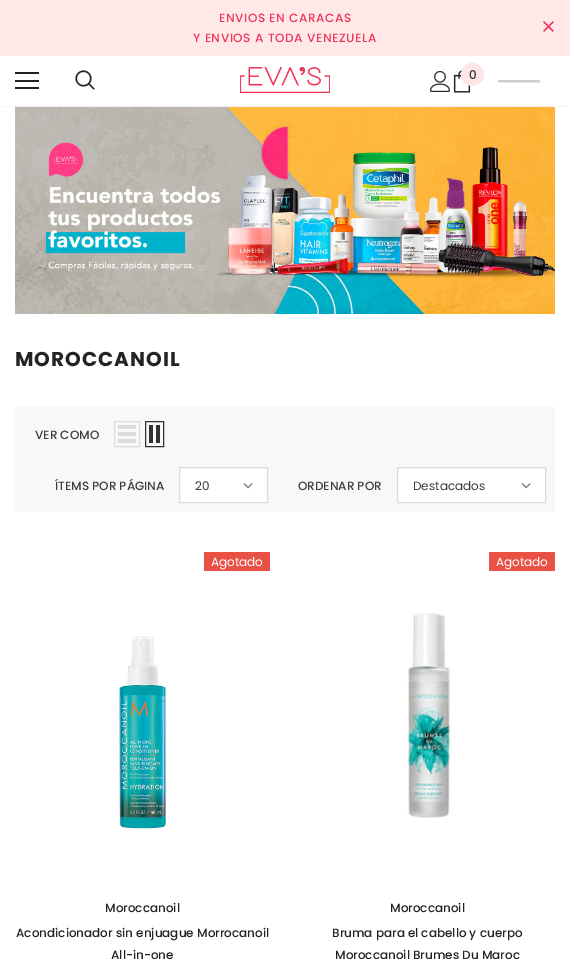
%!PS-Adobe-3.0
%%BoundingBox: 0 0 570 959
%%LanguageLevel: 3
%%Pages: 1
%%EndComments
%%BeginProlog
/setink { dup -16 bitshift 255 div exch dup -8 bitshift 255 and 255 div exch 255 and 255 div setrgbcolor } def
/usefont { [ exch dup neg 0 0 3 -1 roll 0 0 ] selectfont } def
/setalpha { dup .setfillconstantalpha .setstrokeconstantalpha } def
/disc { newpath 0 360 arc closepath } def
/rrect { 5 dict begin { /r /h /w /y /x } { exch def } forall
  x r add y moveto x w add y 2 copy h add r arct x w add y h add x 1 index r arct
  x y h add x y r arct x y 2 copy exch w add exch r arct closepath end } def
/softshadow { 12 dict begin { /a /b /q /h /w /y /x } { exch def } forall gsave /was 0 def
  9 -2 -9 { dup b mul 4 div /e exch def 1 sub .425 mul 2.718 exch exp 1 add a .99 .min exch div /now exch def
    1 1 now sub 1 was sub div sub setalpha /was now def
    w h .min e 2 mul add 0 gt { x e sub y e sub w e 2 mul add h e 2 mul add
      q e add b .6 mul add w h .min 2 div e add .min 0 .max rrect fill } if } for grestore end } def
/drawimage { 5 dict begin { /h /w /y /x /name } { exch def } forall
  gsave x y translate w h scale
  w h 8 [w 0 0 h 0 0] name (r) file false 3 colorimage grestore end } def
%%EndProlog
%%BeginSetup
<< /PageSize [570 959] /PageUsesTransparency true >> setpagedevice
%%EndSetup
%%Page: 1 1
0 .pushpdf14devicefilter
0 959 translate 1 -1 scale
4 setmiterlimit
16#FFFFFF setink
0 0 570 959 rectfill
16#FFE8E8 setink
0 0 570 56 rectfill
/Poppins-Medium 12 usefont
16#EE3456 setink
219 22 moveto 0.6 0 (ENVIOS EN CARACAS) ashow
193 42 moveto 0.6 0 (Y ENVIOS A TODA VENEZUELA) ashow
(img1.raw) 543 21 11 11 drawimage
gsave
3 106 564 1 rectclip
16#000000 setink
3 62 564 44 0 1.5 0.12 softshadow
grestore
[
    [15 72 24 2 16#232323]
    [15 80 24 2 16#232323]
    [15 87 24 2 16#232323]
] { aload pop setink rectfill } forall
(img2.raw) 75 70 20 20 drawimage
(img3.raw) 240 67 90 26 drawimage
(img4.raw) 430 71 20 21 drawimage
(img5.raw) 453 70 18 23 drawimage
16#FFE5E5 setink
472.5 74.5 11.5 disc fill
16#323232 setink
469 79 moveto (0) show
16#E4E4E4 setink
499 82 moveto 499 83 lineto 540 83 lineto 541 83 541 81 540 81 curveto 540 82 lineto closepath fill
16#CDCDCD setink
498 80 42 2 1 rrect fill
(img6.raw) 15 107 540 207 drawimage
/Poppins-Bold 20 usefont
16#232323 setink
15 366 moveto 1 0 (MOROCCANOIL) ashow
16#F8F8F8 setink
15 407 540 105 rectfill
/Poppins-Medium 12 usefont
16#3C3C3C setink
35 439 moveto (VER COMO) show
16#DCDCDC setink
114.5 421.5 25 25 rectstroke
[
    [118 439 18 4 16#DCDCDC]
    [118 432 18 4 16#DCDCDC]
    [118 425 18 4 16#DCDCDC]
] { aload pop setink rectfill } forall
16#323232 setink
145.5 421.5 18 25 rectstroke
156 425 4 18 rectfill
149 425 4 18 rectfill
16#3C3C3C setink
55 490 moveto (ÍTEMS POR PÁGINA) show
16#FFFFFF setink
179.5 467.5 moveto 267.5 467.5 lineto 267.5 502.5 lineto 179.5 502.5 lineto closepath gsave fill grestore
16#DADADA setink
stroke
/Poppins-Regular 12 usefont
16#3C3C3C setink
195 490 moveto (20) show
(img7.raw) 243 483 10 6 drawimage
/Poppins-Medium 12 usefont
298 490 moveto (ORDENAR POR) show
16#FFFFFF setink
397.5 467.5 moveto 545.5 467.5 lineto 545.5 502.5 lineto 397.5 502.5 lineto closepath gsave fill grestore
16#DADADA setink
stroke
/Poppins-Regular 12 usefont
16#3C3C3C setink
413 490 moveto (Destacados) show
(img7.raw) 521 483 10 6 drawimage
16#E95144 setink
204 552 66 19 1 rrect fill
16#FFFFFF setink
211 566 moveto (Agotado) show
(img8.raw) 118 636 49 195 drawimage
/Poppins-Medium 12 usefont
16#232323 setink
[
    [(Moroccanoil) 105 912]
    [(Acondicionador sin enjuague Morrocanoil) 16 937]
    [(All-in-one) 111 959]
] { aload pop moveto show } forall
16#E95144 setink
489 552 66 19 1 rrect fill
/Poppins-Regular 12 usefont
16#FFFFFF setink
496 566 moveto (Agotado) show
(img9.raw) 407 613 48 206 drawimage
/Poppins-Medium 12 usefont
16#232323 setink
[
    [(Moroccanoil) 390 912]
    [(Bruma para el cabello y cuerpo) 332 937]
    [(Moroccanoil Brumes Du Maroc) 335 959]
] { aload pop moveto show } forall
.poppdf14devicefilter showpage
%%EOF
